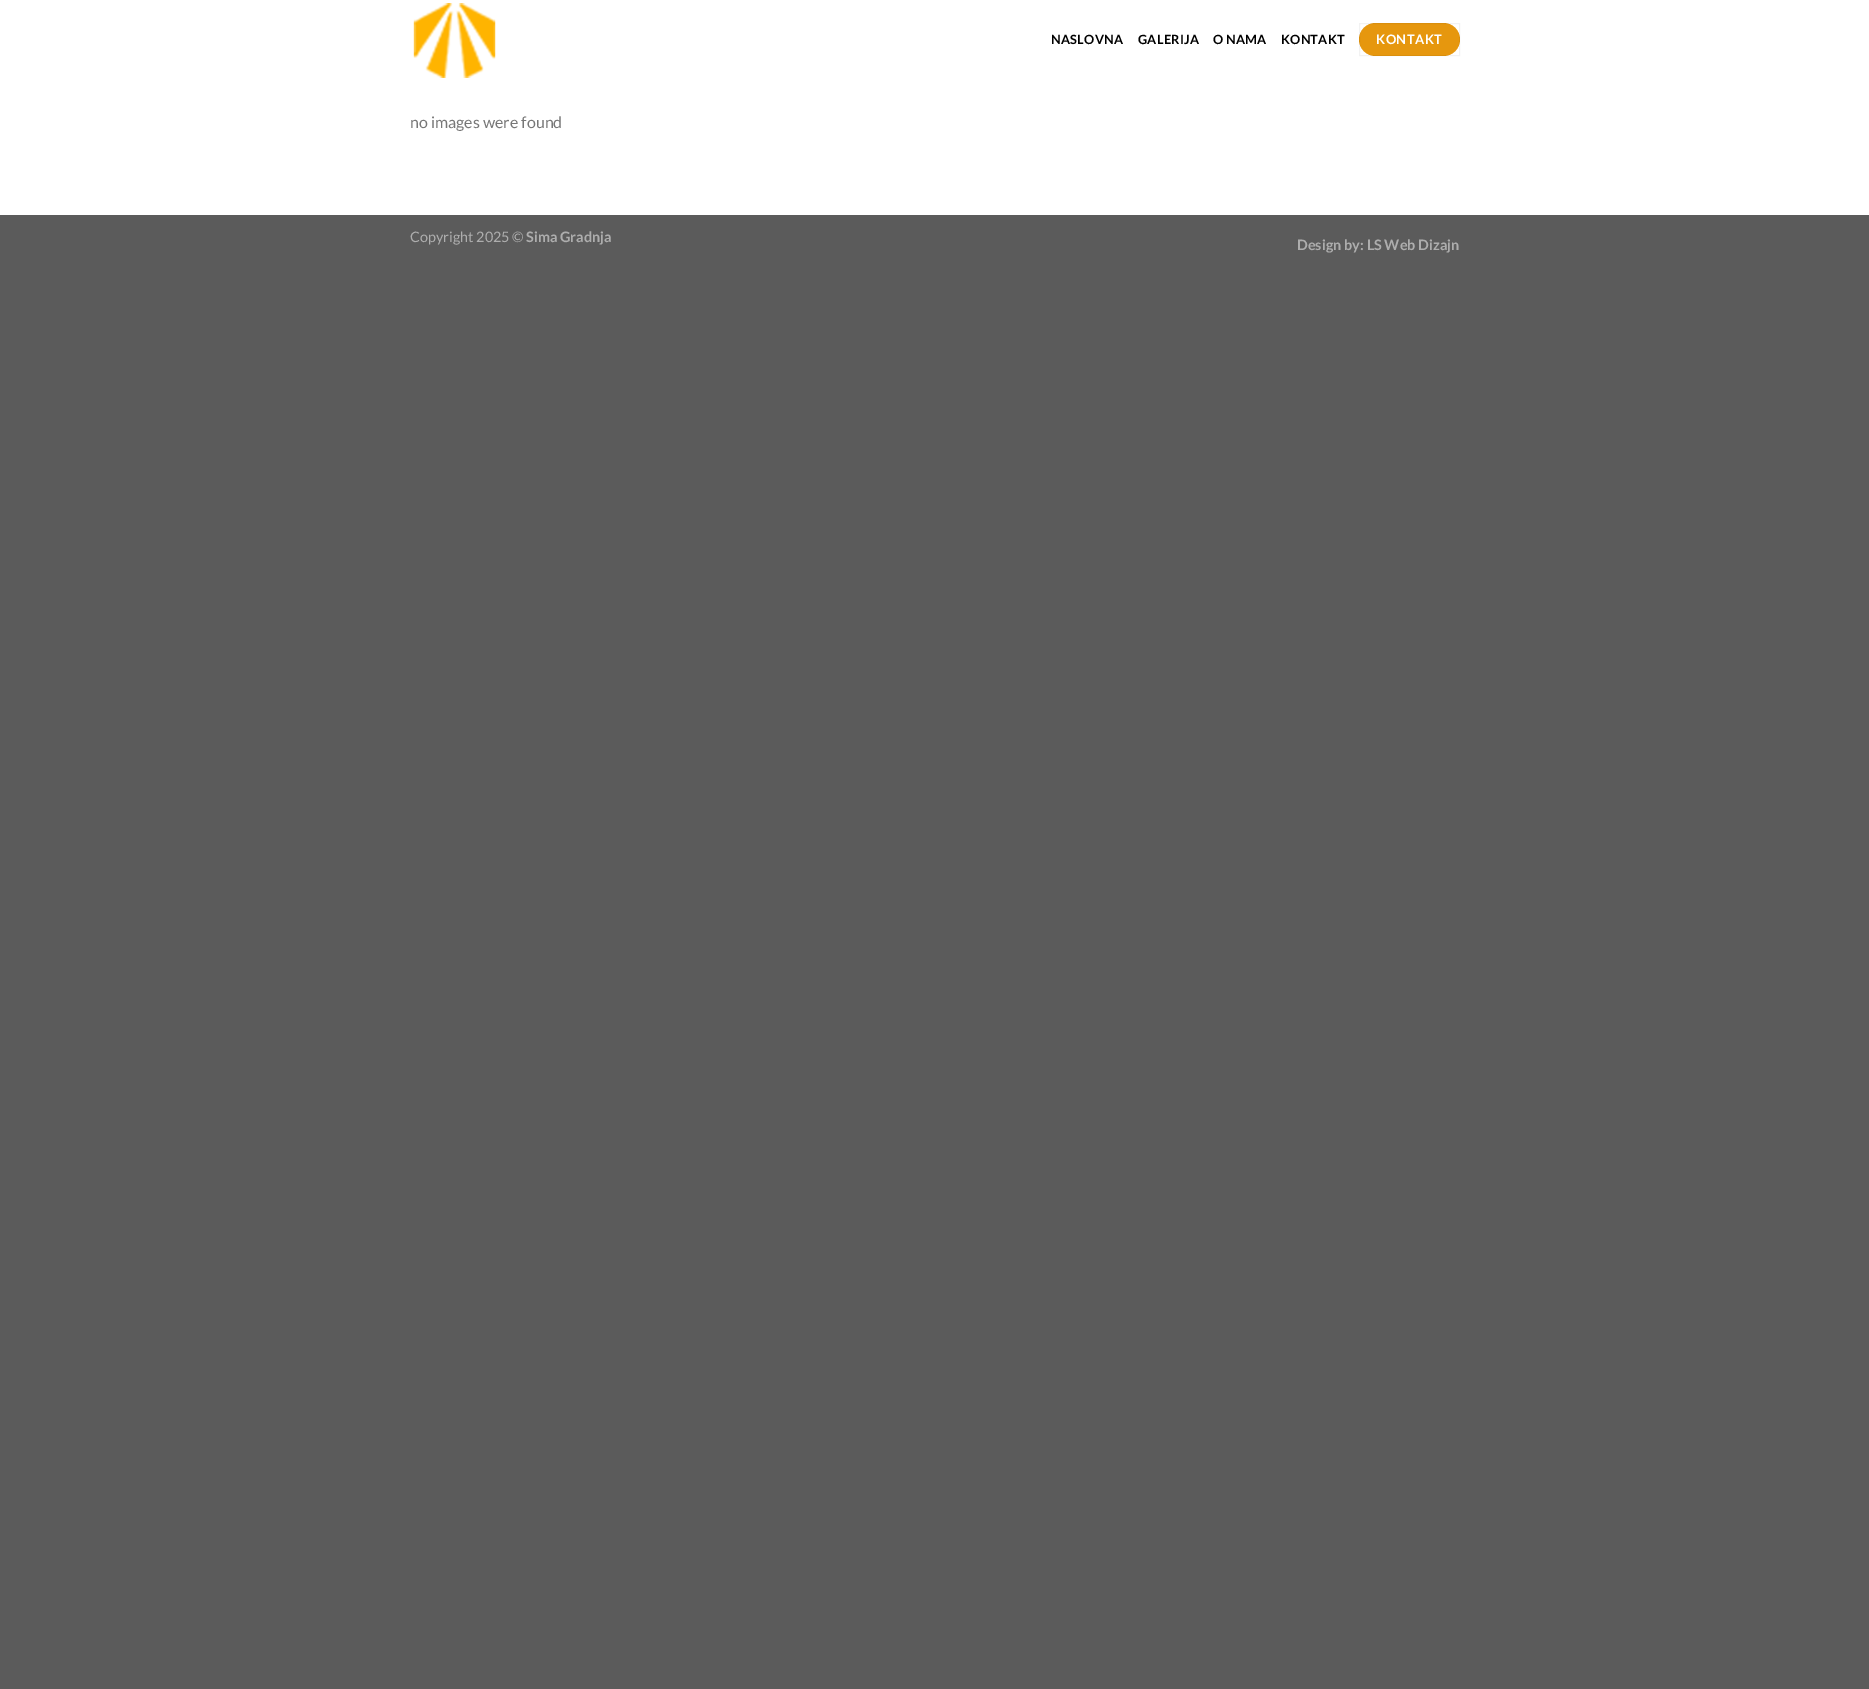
%!PS-Adobe-3.0
%%BoundingBox: 0 0 1869 1689
%%LanguageLevel: 3
%%Pages: 1
%%EndComments
%%BeginProlog
/setink { dup -16 bitshift 255 div exch dup -8 bitshift 255 and 255 div exch 255 and 255 div setrgbcolor } def
/usefont { [ exch dup neg 0 0 3 -1 roll 0 0 ] selectfont } def
/setalpha { dup .setfillconstantalpha .setstrokeconstantalpha } def
/rrect { 5 dict begin { /r /h /w /y /x } { exch def } forall
  x r add y moveto x w add y 2 copy h add r arct x w add y h add x 1 index r arct
  x y h add x y r arct x y 2 copy exch w add exch r arct closepath end } def
/drawimage { 5 dict begin { /h /w /y /x /name } { exch def } forall
  gsave x y translate w h scale
  w h 8 [w 0 0 h 0 0] name (r) file false 3 colorimage grestore end } def
%%EndProlog
%%BeginSetup
<< /PageSize [1869 1689] /PageUsesTransparency true >> setpagedevice
%%EndSetup
%%Page: 1 1
0 .pushpdf14devicefilter
0 1689 translate 1 -1 scale
4 setmiterlimit
16#5B5B5B setink
0 0 1869 1689 rectfill
16#FFFFFF setink
0 0 1869 215 rectfill
(img1.raw) 413 3 83 75 drawimage
/Lato-Bold 12.75 usefont
16#000000 setink
1051 44 moveto 0.25 0 (NASLOVNA) ashow
1138 44 moveto 0.25 0 (GALERIJA) ashow
1213 44 moveto 0.25 0 (O NAMA) ashow
1281 44 moveto 0.25 0 (KONTAKT) ashow
16#E6970E setink
1359 23 101 33 16.5 rrect fill
0.05 setalpha
16#000000 setink
1359.5 23.5 100 32 rectstroke
/Lato-Bold 13 usefont
1 setalpha
16#FFFFFF setink
1376 44 moveto 0.5 0 (KONTAKT) ashow
/Lato-Regular 16 usefont
16#777777 setink
410 128 moveto (no images were found) show
/Lato-Regular 14.4 usefont
16#ADADAD setink
410 242 moveto (Copyright 2025 ©) show
/Lato-Bold 14.4 usefont
526 242 moveto (Sima Gradnja) show
1297 250 moveto (Design by: LS Web Dizajn) show
.poppdf14devicefilter showpage
%%EOF
